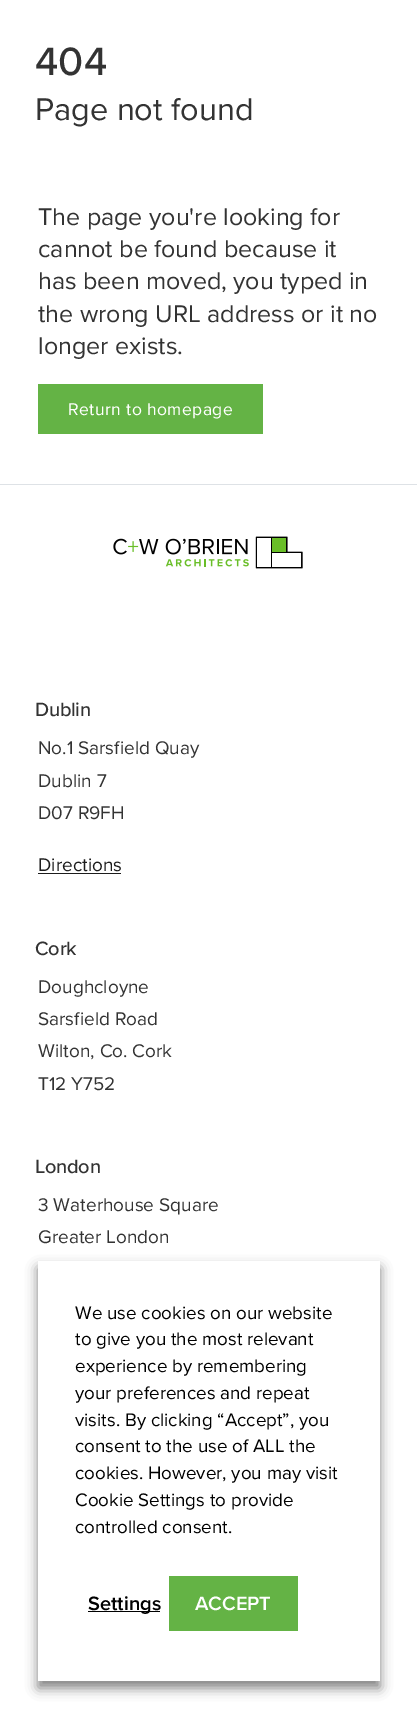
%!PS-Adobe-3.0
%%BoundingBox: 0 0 417 1718
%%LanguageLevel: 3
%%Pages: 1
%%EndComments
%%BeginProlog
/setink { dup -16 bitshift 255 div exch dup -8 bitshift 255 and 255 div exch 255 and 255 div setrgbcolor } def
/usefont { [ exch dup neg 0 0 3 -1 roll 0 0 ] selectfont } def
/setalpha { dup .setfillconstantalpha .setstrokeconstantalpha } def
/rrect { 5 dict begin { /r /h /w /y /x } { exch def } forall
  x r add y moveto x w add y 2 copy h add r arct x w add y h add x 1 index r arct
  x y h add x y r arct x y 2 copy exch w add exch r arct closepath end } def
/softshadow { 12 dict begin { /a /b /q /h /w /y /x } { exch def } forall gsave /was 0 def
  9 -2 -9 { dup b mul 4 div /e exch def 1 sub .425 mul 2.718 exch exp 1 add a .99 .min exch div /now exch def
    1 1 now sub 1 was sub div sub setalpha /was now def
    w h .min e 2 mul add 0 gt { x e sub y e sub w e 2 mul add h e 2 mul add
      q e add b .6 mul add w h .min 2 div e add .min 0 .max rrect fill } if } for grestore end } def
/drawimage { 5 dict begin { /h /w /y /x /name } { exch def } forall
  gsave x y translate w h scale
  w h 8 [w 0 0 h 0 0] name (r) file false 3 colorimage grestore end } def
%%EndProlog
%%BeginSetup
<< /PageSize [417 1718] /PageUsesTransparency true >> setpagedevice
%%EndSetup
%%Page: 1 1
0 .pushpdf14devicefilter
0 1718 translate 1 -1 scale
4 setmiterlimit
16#FFFFFF setink
0 0 417 1718 rectfill
/ProximaNova-Medium 41 usefont
16#333333 setink
35 75 moveto (404) show
/ProximaNova-Regular 32.5 usefont
35 120 moveto (Page not found) show
/ProximaNova-Regular 25 usefont
[
    [(The page you're looking for) 38 225]
    [(cannot be found because it) 38 257]
    [(has been moved, you typed in) 38 289]
    [(the wrong URL address or it no) 38 322]
    [(longer exists.) 38 354]
] { aload pop moveto show } forall
16#64B345 setink
38 384 225 50 rectfill
/ProximaNova-Regular 17.5 usefont
16#FFFFFF setink
68 415 moveto 0.4 0 (Return to homepage) ashow
16#DEE2E6 setink
0 484 417 1 rectfill
(img1.raw) 113 536 190 33 drawimage
/ProximaNova-Medium 20 usefont
16#333333 setink
35 716 moveto -0.25 0 (Dublin) ashow
/ProximaNova-Regular 19 usefont
[
    [(No.1 Sarsfield Quay) 38 754]
    [(Dublin 7) 38 787]
    [(D07 R9FH) 38 819]
] { aload pop moveto show } forall
16#1C1C1C setink
38 871 moveto (Directions) show
38 873 83 1 rectfill
/ProximaNova-Medium 20 usefont
16#333333 setink
35 955 moveto -0.25 0 (Cork) ashow
/ProximaNova-Regular 19 usefont
[
    [(Doughcloyne) 38 993]
    [(Sarsfield Road) 38 1025]
    [(Wilton, Co. Cork) 38 1057]
    [(T12 Y752) 38 1090]
] { aload pop moveto show } forall
/ProximaNova-Medium 20 usefont
35 1173 moveto -0.25 0 (London) ashow
/ProximaNova-Regular 19 usefont
38 1211 moveto (3 Waterhouse Square) show
38 1243 moveto (Greater London) show
16#000000 setink
38 1268 342 420 0 6 0.5 softshadow
16#FFFFFF setink
38 1261 342 420 rectfill
/ProximaNova-Regular 18.75 usefont
16#000000 setink
[
    [(We use cookies on our website) 75 1319]
    [(to give you the most relevant) 75 1345]
    [(experience by remembering) 75 1372]
    [(your preferences and repeat) 75 1399]
    [(visits. By clicking “Accept”, you) 75 1426]
    [(consent to the use of ALL the) 75 1452]
    [(cookies. However, you may visit) 75 1479]
    [(Cookie Settings to provide) 75 1506]
    [(controlled consent.) 75 1533]
] { aload pop moveto show } forall
88 1611 72 1 rectfill
/ProximaNova-SemiBold 20 usefont
88 1610 moveto (Settings) show
16#64B345 setink
169 1576 129 55 rectfill
16#FFFFFF setink
195 1610 moveto (ACCEPT) show
.poppdf14devicefilter showpage
%%EOF
